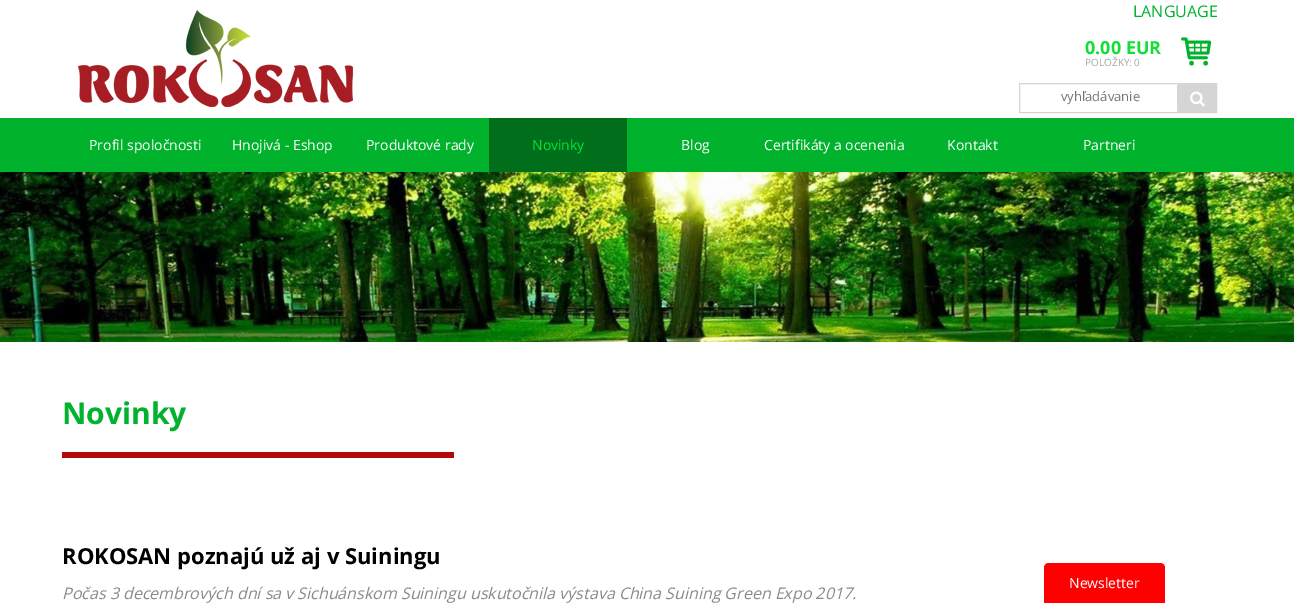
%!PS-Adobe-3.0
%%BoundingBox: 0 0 1294 603
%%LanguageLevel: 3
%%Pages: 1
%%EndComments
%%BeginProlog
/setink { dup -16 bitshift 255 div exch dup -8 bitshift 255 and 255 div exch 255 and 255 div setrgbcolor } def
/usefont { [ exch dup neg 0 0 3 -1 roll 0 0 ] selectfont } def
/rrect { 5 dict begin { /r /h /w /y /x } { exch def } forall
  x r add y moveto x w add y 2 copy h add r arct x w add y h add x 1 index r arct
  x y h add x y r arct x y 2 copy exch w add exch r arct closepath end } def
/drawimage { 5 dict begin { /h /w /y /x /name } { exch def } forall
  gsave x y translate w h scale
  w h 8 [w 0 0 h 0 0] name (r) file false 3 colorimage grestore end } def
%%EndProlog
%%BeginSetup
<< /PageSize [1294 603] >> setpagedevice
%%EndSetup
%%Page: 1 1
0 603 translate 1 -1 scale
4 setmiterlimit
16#FFFFFF setink
0 0 1294 603 rectfill
(img1.raw) 78 10 275 97 drawimage
/OpenSans-Regular 16 usefont
16#00B22C setink
1133 17 moveto (LANGUAGE) show
/OpenSans-Bold 18 usefont
16#11DE36 setink
1085 54 moveto (0.00 EUR) show
/OpenSans-Regular 10 usefont
16#A5A5A5 setink
1085 66 moveto (POLOŽKY: 0) show
(img2.raw) 1181 37 31 29 drawimage
16#D5D5D5 setink
1019.5 83.5 197 29 rectstroke
/OpenSans-Regular 13 usefont
16#757575 setink
1061 101 moveto (vyhľadávanie) show
16#D5D5D5 setink
1177 84 40 28 2 rrect fill
(img3.raw) 1190 91 15 16 drawimage
16#00B22C setink
0 118 1294 54 rectfill
/OpenSans-Regular 14 usefont
16#FFFFFF setink
[
    [(Profil spoločnosti) 89 150]
    [(Hnojivá - Eshop) 232 150]
    [(Produktové rady) 366 150]
] { aload pop moveto show } forall
16#006E1B setink
489 118 138 54 rectfill
16#00E839 setink
532 150 moveto (Novinky) show
16#FFFFFF setink
[
    [(Blog) 681 150]
    [(Certifikáty a ocenenia) 764 150]
    [(Kontakt) 947 150]
    [(Partneri) 1083 150]
] { aload pop moveto show } forall
(img4.raw) 0 172 1294 170 drawimage
/OpenSans-Bold 30 usefont
16#00B22C setink
62 424 moveto (Novinky) show
16#B20A0A setink
62 452 392 6 rectfill
/OpenSans-Bold 22 usefont
16#000000 setink
62 564 moveto (ROKOSAN poznajú už aj v Suiningu) show
/OpenSans-Italic 16 usefont
16#8A8A8A setink
62 599 moveto (Počas 3 decembrových dní sa v Sichuánskom Suiningu uskutočnila výstava China Suining Green Expo 2017.) show
16#FF0000 setink
1049 563 moveto 1160 563 lineto 1163 563 1165 565 1165 568 curveto 1165 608 lineto 1044 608 lineto 1044 568 lineto 1044 565 1046 563 1049 563 curveto closepath fill
/OpenSans-Regular 14 usefont
16#FFFFFF setink
1069 588 moveto (Newsletter) show
showpage
%%EOF
